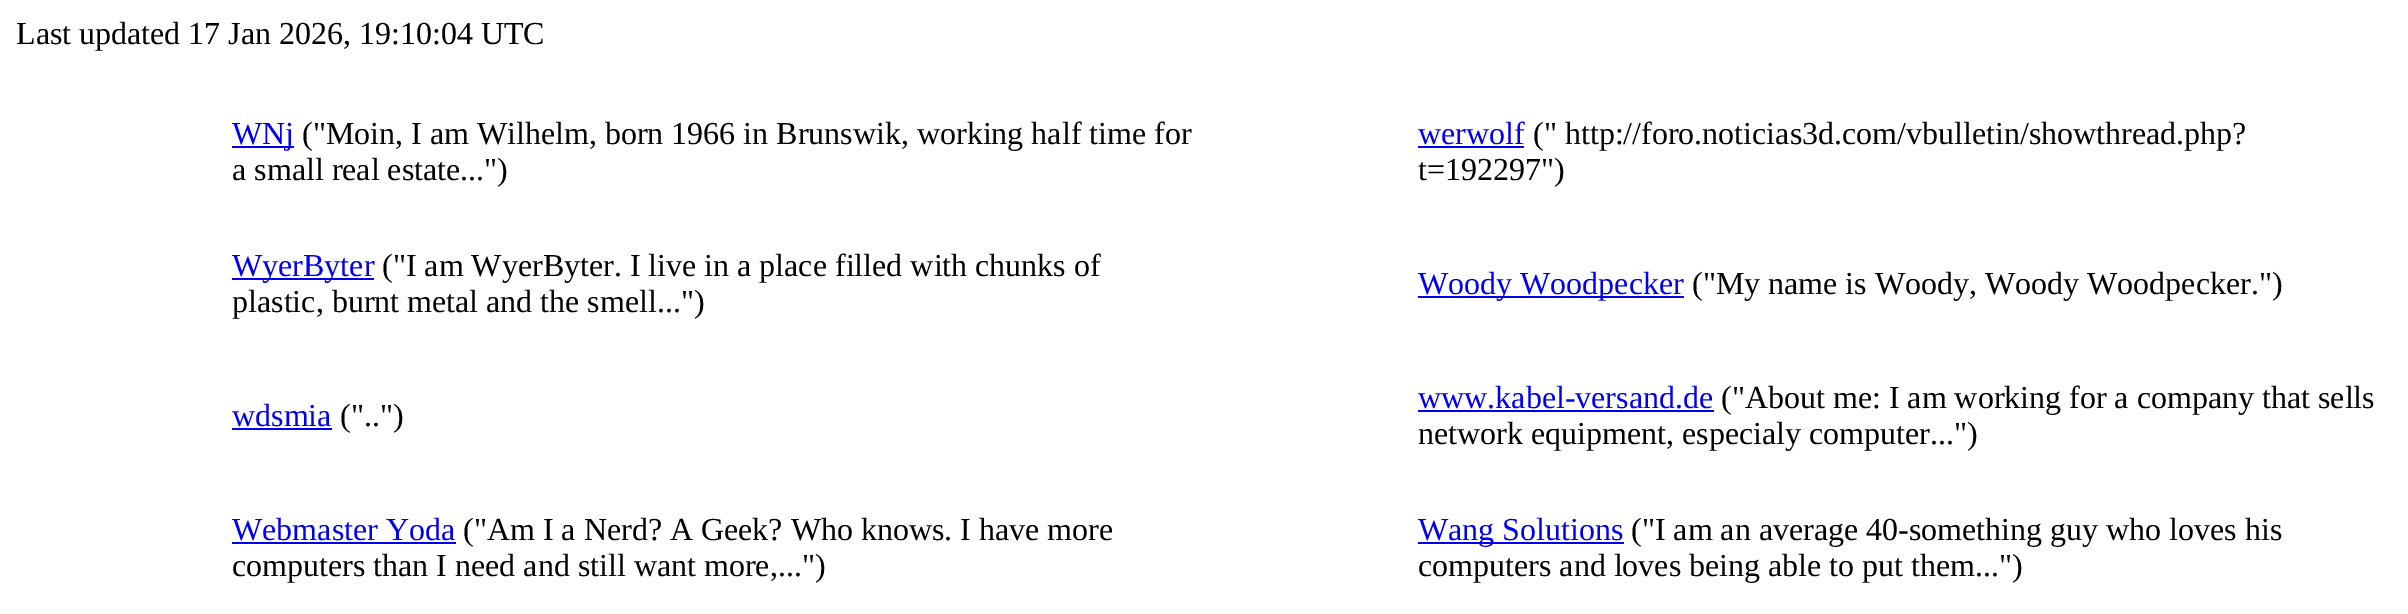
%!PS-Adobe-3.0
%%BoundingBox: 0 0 2408 614
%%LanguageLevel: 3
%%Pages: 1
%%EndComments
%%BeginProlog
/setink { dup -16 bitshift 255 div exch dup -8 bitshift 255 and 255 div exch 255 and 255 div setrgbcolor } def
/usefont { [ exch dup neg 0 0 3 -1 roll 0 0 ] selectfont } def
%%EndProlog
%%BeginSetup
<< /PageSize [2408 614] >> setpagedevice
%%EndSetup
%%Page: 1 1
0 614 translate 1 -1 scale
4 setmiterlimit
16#FFFFFF setink
0 0 2408 614 rectfill
/LiberationSerif-Regular 32 usefont
16#000000 setink
16 44 moveto (Last updated 17 Jan 2026, 19:10:04 UTC) show
16#0000EE setink
232 146 62 2 rectfill
232 144 moveto (WNj) show
16#000000 setink
302 144 moveto (\("Moin, I am Wilhelm, born 1966 in Brunswik, working half time for) show
232 180 moveto (a small real estate..."\)) show
16#0000EE setink
1418 144 moveto (werwolf) show
1418 146 106 2 rectfill
16#000000 setink
1533 144 moveto (\(" http://foro.noticias3d.com/vbulletin/showthread.php?) show
1418 180 moveto (t=192297"\)) show
16#0000EE setink
232 278 142 2 rectfill
232 276 moveto (WyerByter) show
16#000000 setink
382 276 moveto (\("I am WyerByter. I live in a place filled with chunks of) show
232 312 moveto (plastic, burnt metal and the smell..."\)) show
16#0000EE setink
1418 296 266 2 rectfill
1418 294 moveto (Woody Woodpecker) show
16#000000 setink
1692 294 moveto (\("My name is Woody, Woody Woodpecker."\)) show
16#0000EE setink
232 426 moveto (wdsmia) show
232 428 100 2 rectfill
16#000000 setink
340 426 moveto (\(".."\)) show
16#0000EE setink
1418 408 moveto (www.kabel-versand.de) show
1418 410 296 2 rectfill
16#000000 setink
1721 408 moveto (\("About me: I am working for a company that sells) show
1418 444 moveto (network equipment, especialy computer..."\)) show
16#0000EE setink
232 540 moveto (Webmaster Yoda) show
232 542 224 2 rectfill
16#000000 setink
463 540 moveto (\("Am I a Nerd? A Geek? Who knows. I have more) show
232 576 moveto (computers than I need and still want more,..."\)) show
16#0000EE setink
1418 542 206 2 rectfill
1418 540 moveto (Wang Solutions) show
16#000000 setink
1631 540 moveto (\("I am an average 40-something guy who loves his) show
1418 576 moveto (computers and loves being able to put them..."\)) show
showpage
%%EOF
